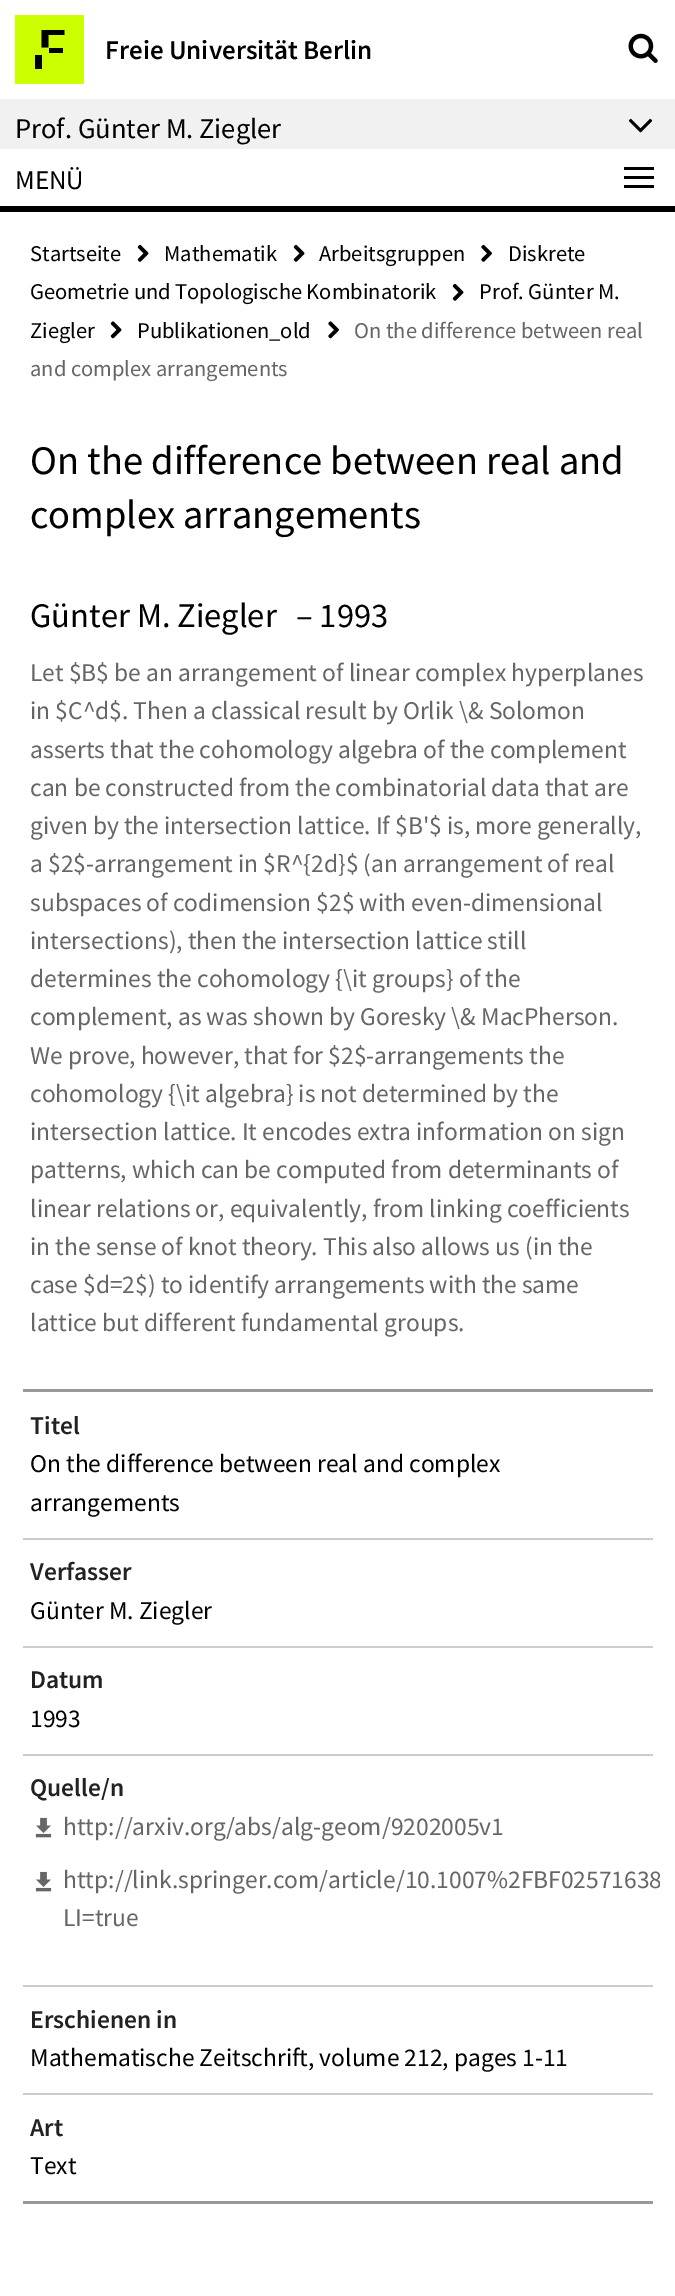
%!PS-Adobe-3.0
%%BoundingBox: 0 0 675 2296
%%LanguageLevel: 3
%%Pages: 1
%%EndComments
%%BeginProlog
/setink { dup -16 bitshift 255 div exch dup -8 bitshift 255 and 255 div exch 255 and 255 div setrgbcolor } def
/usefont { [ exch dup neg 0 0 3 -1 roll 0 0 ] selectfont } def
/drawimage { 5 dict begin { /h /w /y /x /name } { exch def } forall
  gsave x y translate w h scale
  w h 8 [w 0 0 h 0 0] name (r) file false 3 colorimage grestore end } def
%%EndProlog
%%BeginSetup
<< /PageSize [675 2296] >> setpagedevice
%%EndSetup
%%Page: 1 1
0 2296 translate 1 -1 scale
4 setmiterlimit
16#FFFFFF setink
0 0 675 2296 rectfill
16#CCFF00 setink
15 15 69 69 rectfill
16#000000 setink
41.5 30 moveto 64.5 30 lineto 64.5 35 lineto 48.5 35 lineto 48.5 47.5 lineto 41.5 47.5 lineto closepath fill
49 48 14 5 rectfill
35 55 7 14 rectfill
/SourceSansPro-SemiBold 27 usefont
105 59 moveto (Freie Universität Berlin) show
(img1.raw) 628 33 30 30 drawimage
16#F1F1F1 setink
0 99 675 50 rectfill
/SourceSansPro-Regular 28.5 usefont
16#000000 setink
15 138 moveto (Prof. Günter M. Ziegler) show
(img2.raw) 628 118 25 15 drawimage
0 206 675 6 rectfill
/SourceSansPro-Regular 27 usefont
15 189 moveto (MENÜ) show
[
    [624 167 30 3 16#000000]
    [624 176 30 3 16#000000]
    [624 185 30 3 16#000000]
] { aload pop setink rectfill } forall
/SourceSansPro-Regular 22.5 usefont
30 261 moveto (Startseite) show
(img3.raw) 137 244 12 18 drawimage
508 261 moveto (Diskrete) show
30 299 moveto (Geometrie und Topologische Kombinatorik) show
(img3.raw) 452 283 12 18 drawimage
164 261 moveto (Mathematik) show
(img3.raw) 293 244 12 18 drawimage
319 261 moveto (Arbeitsgruppen) show
(img4.raw) 481 244 11 18 drawimage
479 299 moveto (Prof. Günter M.) show
30 338 moveto (Ziegler) show
(img5.raw) 110 321 12 18 drawimage
137 338 moveto (Publikationen_old) show
(img6.raw) 328 321 11 18 drawimage
16#666666 setink
354 338 moveto (On the difference between real) show
30 376 moveto (and complex arrangements) show
/SourceSansPro-Regular 40.5 usefont
16#000000 setink
30 474 moveto (On the difference between real and) show
30 528 moveto (complex arrangements) show
/SourceSansPro-Regular 34.5 usefont
30 627 moveto (Günter M. Ziegler) show
296 627 moveto (– 1993) show
/SourceSansPro-Regular 25.5 usefont
16#666666 setink
[
    [(Let $B$ be an arrangement of linear complex hyperplanes) 30 681]
    [(in $C^d$. Then a classical result by Orlik \\& Solomon) 30 719]
    [(asserts that the cohomology algebra of the complement) 30 758]
    [(can be constructed from the combinatorial data that are) 30 796]
    [(given by the intersection lattice. If $B'$ is, more generally,) 30 834]
    [(a $2$-arrangement in $R^{2d}$ \(an arrangement of real) 30 872]
    [(subspaces of codimension $2$ with even-dimensional) 30 911]
    [(intersections\), then the intersection lattice still) 30 949]
    [(determines the cohomology {\\it groups} of the) 30 987]
    [(complement, as was shown by Goresky \\& MacPherson.) 30 1025]
    [(We prove, however, that for $2$-arrangements the) 30 1064]
    [(cohomology {\\it algebra} is not determined by the) 30 1102]
    [(intersection lattice. It encodes extra information on sign) 30 1140]
    [(patterns, which can be computed from determinants of) 30 1178]
    [(linear relations or, equivalently, from linking coefficients) 30 1217]
    [(in the sense of knot theory. This also allows us \(in the) 30 1255]
    [(case $d=2$\) to identify arrangements with the same) 30 1293]
    [(lattice but different fundamental groups.) 30 1331]
] { aload pop moveto show } forall
16#999999 setink
23 1389 630 3 rectfill
/SourceSansPro-SemiBold 25.5 usefont
16#222222 setink
30 1434 moveto (Titel) show
/SourceSansPro-Regular 25.5 usefont
16#000000 setink
30 1472 moveto (On the difference between real and complex) show
30 1511 moveto (arrangements) show
16#CCCCCC setink
23 1538 630 2 rectfill
/SourceSansPro-SemiBold 25.5 usefont
16#222222 setink
30 1580 moveto (Verfasser) show
/SourceSansPro-Regular 25.5 usefont
16#000000 setink
30 1619 moveto (Günter M. Ziegler) show
16#CCCCCC setink
23 1646 630 2 rectfill
/SourceSansPro-SemiBold 25.5 usefont
16#222222 setink
30 1688 moveto (Datum) show
/SourceSansPro-Regular 25.5 usefont
16#000000 setink
30 1727 moveto (1993) show
16#CCCCCC setink
23 1754 630 2 rectfill
/SourceSansPro-SemiBold 25.5 usefont
16#222222 setink
30 1796 moveto (Quelle/n) show
(img7.raw) 35 1817 17 21 drawimage
/SourceSansPro-Regular 25.5 usefont
16#666666 setink
63 1835 moveto (http://arxiv.org/abs/alg-geom/9202005v1) show
(img7.raw) 35 1871 17 21 drawimage
gsave
15 410 645 1846 rectclip
63 1888 moveto (http://link.springer.com/article/10.1007%2FBF02571638) show
grestore
63 1926 moveto (LI=true) show
16#CCCCCC setink
23 1985 630 2 rectfill
/SourceSansPro-SemiBold 25.5 usefont
16#222222 setink
30 2028 moveto (Erschienen in) show
/SourceSansPro-Regular 25.5 usefont
16#000000 setink
30 2066 moveto (Mathematische Zeitschrift, volume 212, pages 1-11) show
16#CCCCCC setink
23 2093 630 2 rectfill
16#999999 setink
23 2201 630 3 rectfill
/SourceSansPro-SemiBold 25.5 usefont
16#222222 setink
30 2136 moveto (Art) show
/SourceSansPro-Regular 25.5 usefont
16#000000 setink
30 2174 moveto (Text) show
showpage
%%EOF
